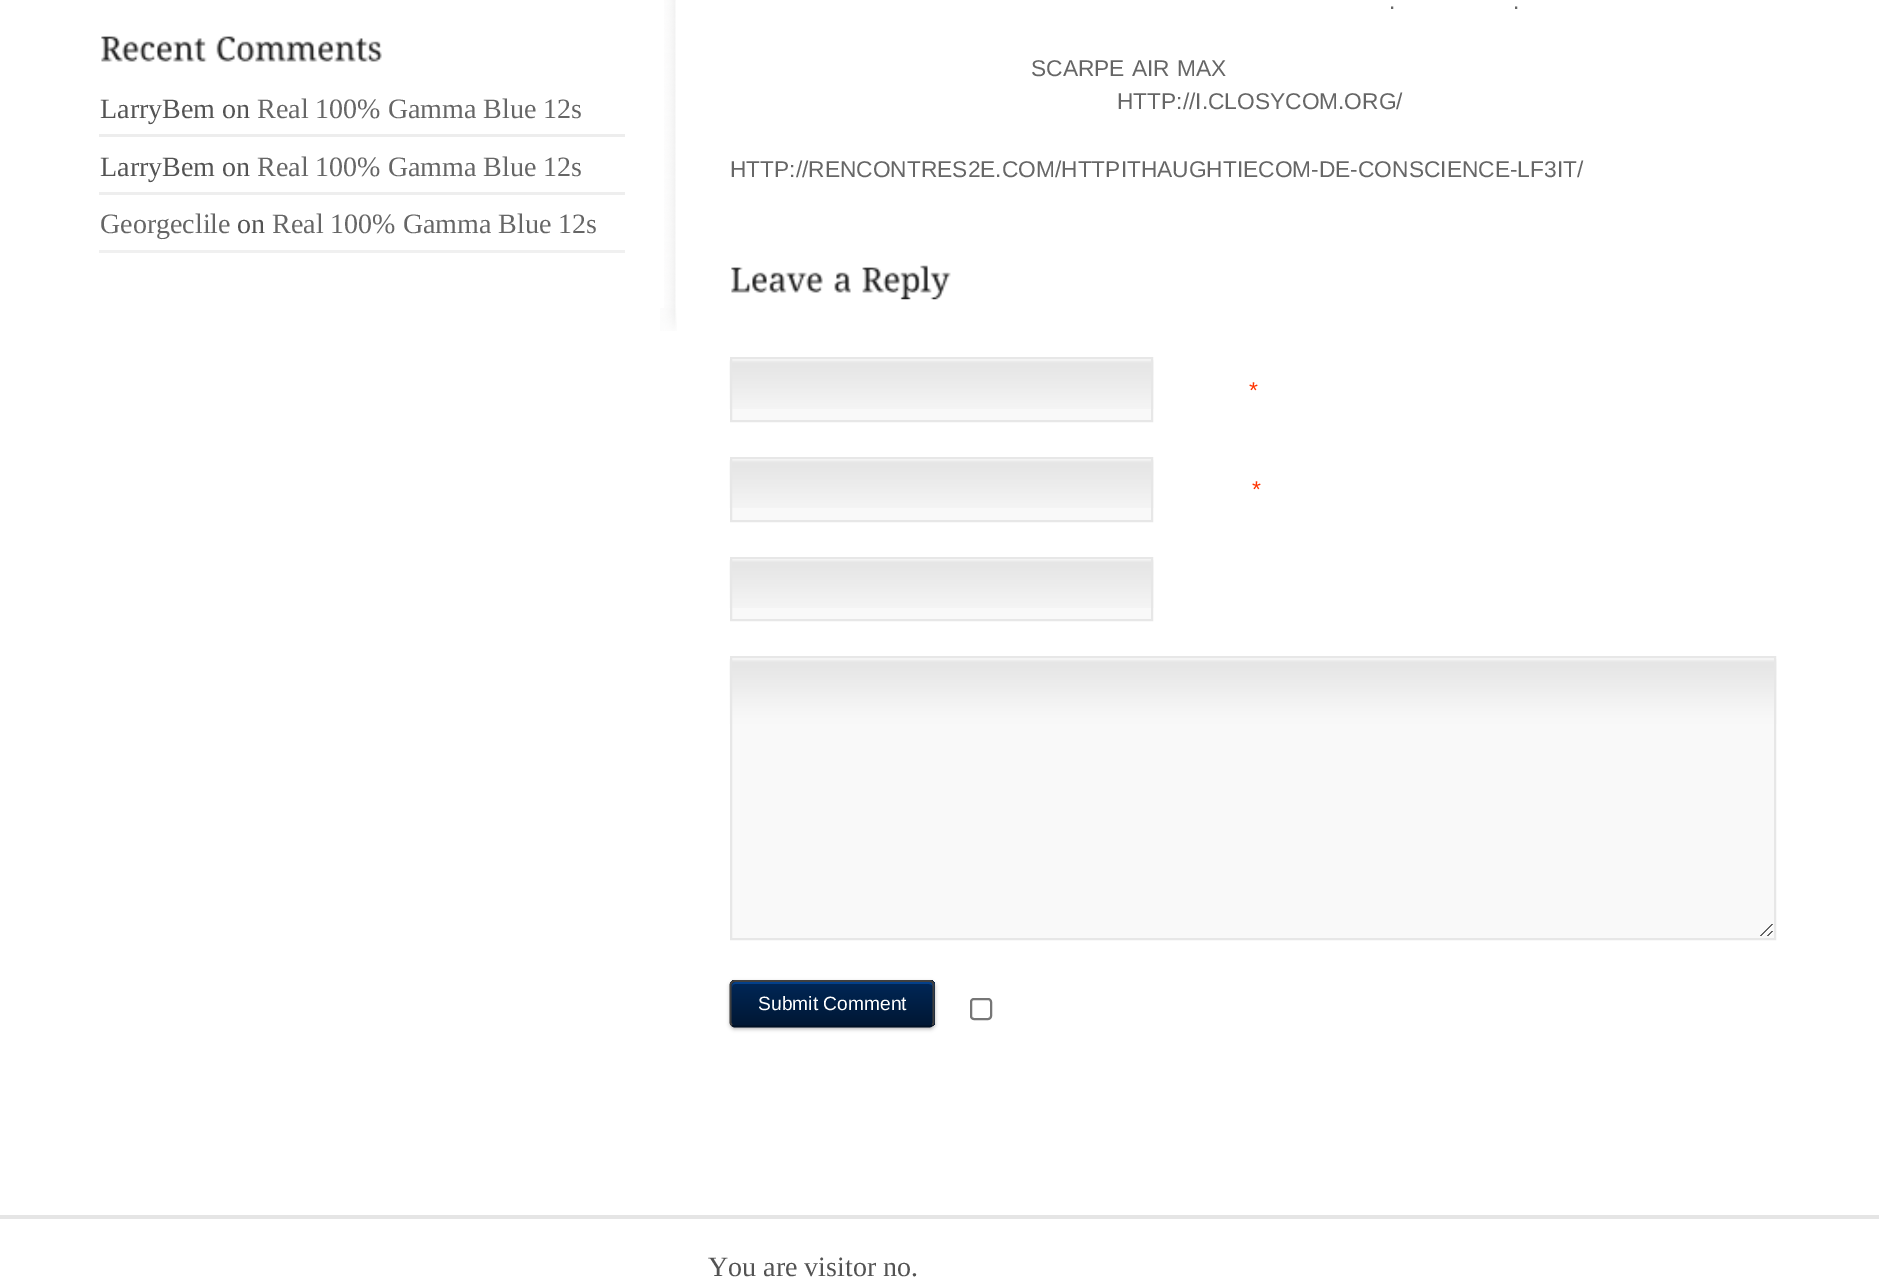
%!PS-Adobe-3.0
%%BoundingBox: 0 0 1879 1277
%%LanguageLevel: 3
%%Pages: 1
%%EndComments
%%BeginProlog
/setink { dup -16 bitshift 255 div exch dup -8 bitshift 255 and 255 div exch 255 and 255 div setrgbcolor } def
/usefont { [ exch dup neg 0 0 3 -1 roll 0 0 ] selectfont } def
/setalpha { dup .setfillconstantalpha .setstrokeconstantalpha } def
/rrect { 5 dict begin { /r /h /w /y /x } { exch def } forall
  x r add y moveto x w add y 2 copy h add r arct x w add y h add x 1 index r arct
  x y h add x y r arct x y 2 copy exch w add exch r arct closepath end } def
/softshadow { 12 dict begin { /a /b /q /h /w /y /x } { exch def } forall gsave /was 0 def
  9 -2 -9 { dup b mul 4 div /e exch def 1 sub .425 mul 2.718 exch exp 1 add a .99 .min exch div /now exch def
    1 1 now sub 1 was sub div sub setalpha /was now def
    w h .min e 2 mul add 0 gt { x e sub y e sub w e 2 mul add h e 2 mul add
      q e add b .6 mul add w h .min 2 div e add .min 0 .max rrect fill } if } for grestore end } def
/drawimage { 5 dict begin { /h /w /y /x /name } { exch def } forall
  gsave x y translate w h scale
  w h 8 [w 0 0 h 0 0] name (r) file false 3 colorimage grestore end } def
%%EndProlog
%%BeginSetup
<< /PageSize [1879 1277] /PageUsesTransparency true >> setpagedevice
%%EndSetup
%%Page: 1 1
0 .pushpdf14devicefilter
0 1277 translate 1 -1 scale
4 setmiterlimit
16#FFFFFF setink
0 0 1879 1277 rectfill
(img1.raw) 664 0 12 308 drawimage
(img2.raw) 101 36 106 26 drawimage
(img3.raw) 216 36 166 26 drawimage
16#EDEDED setink
99 134 526 3 rectfill
/LiberationSerif-Regular 28 usefont
16#535353 setink
100 118 moveto (LarryBem on) show
16#666666 setink
257 118 moveto (Real 100% Gamma Blue 12s) show
16#EEEEEE setink
99 192 526 3 rectfill
16#535353 setink
100 176 moveto (LarryBem on) show
16#666666 setink
257 176 moveto (Real 100% Gamma Blue 12s) show
16#F0F0F0 setink
99 250 526 3 rectfill
16#666666 setink
100 233 moveto (Georgeclile) show
16#535353 setink
237 233 moveto (on) show
16#666666 setink
272 233 moveto (Real 100% Gamma Blue 12s) show
(img4.raw) 660 308 17 23 drawimage
/LiberationSans-Regular 22.75 usefont
1389 9 moveto (.) show
1513 9 moveto (.) show
1031 76 moveto 1 0 32 (SCARPE AIR MAX) widthshow
1117 109 moveto (HTTP://I.CLOSYCOM.ORG/) show
730 177 moveto (HTTP://RENCONTRES2E.COM/HTTPITHAUGHTIECOM-DE-CONSCIENCE-LF3IT/) show
(img5.raw) 731 267 92 26 drawimage
(img6.raw) 834 272 17 21 drawimage
(img7.raw) 862 265 89 35 drawimage
16#F9F9F9 setink
732 359 419 61 rectfill
(img8.raw) 729 360 425 49 drawimage
16#E7E7E7 setink
2 setlinewidth
731 358 421 63 rectstroke
16#FF3300 setink
1249 398 moveto (*) show
16#F9F9F9 setink
732 459 419 61 rectfill
(img9.raw) 729 460 425 48 drawimage
16#E7E7E7 setink
731 458 421 63 rectstroke
16#FF3300 setink
1252 497 moveto (*) show
16#F9F9F9 setink
732 559 419 60 rectfill
(img10.raw) 729 560 425 48 drawimage
16#E7E7E7 setink
731 558 421 62 rectstroke
16#F9F9F9 setink
732 658 1042 280 rectfill
(img11.raw) 729 659 1048 277 drawimage
16#E7E7E7 setink
731 657 1044 282 rectstroke
16#B3B3B3 setink
730 982 205 47 5 2 1 softshadow
gsave
730 980 205 47 5 rrect clip newpath
gsave 730 980 moveto 935 980 lineto 935 982 lineto 730 982 lineto closepath clip newpath
<< /ShadingType 2 /ColorSpace /DeviceRGB /Coords [732 938 732 982] /Extend [true true] /Function << /FunctionType 2 /Domain [0 1] /C0 [0 0.153 0.341] /C1 [0 0.09 0.2] /N 1 >> >> shfill grestore
gsave 730 982 moveto 935 982 lineto 935 1026 lineto 730 1026 lineto closepath clip newpath
<< /ShadingType 2 /ColorSpace /DeviceRGB /Coords [732 982 732 1026] /Extend [true true] /Function << /FunctionType 2 /Domain [0 1] /C0 [0 0.153 0.341] /C1 [0 0.09 0.2] /N 1 >> >> shfill grestore
grestore
16#04408A setink
735 984 moveto 929 984 lineto 931 984 933 985 933 987 curveto 933 986 lineto 933 984 931 982 929 982 curveto 736 982 lineto 734 982 732 984 732 986 curveto 732 987 lineto 732 985 733 984 735 984 curveto closepath fill
16#001024 setink
1.8 setlinewidth
932.5 1025 moveto 931.5 1026 930.5 1026.5 929 1026.5 curveto 735 1026.5 lineto 734 1026.5 732.5 1026 732 1025 curveto stroke
16#3F3F3F setink
732 1025 moveto 731 1024.5 730.5 1023 730.5 1022 curveto 730.5 985 lineto 730.5 984 731 983 732 982 curveto 732.5 981.5 734 981 735 981 curveto 929 981 lineto 930.5 981 931.5 981.5 932.5 982 curveto 933 983 933.5 984 933.5 985 curveto 933.5 1022 lineto 933.5 1023 933 1024.5 932.5 1025 curveto stroke
/LiberationSans-Regular 19.25 usefont
16#FFFFFF setink
758 1010 moveto (Submit Comment) show
16#767676 setink
2 setlinewidth
971 999 20 20 3 rrect stroke
16#E5E5E5 setink
0 1215 1879 4 rectfill
/LiberationSerif-Regular 28 usefont
16#535353 setink
708 1276 moveto (You are visitor no.) show
.poppdf14devicefilter showpage
%%EOF
